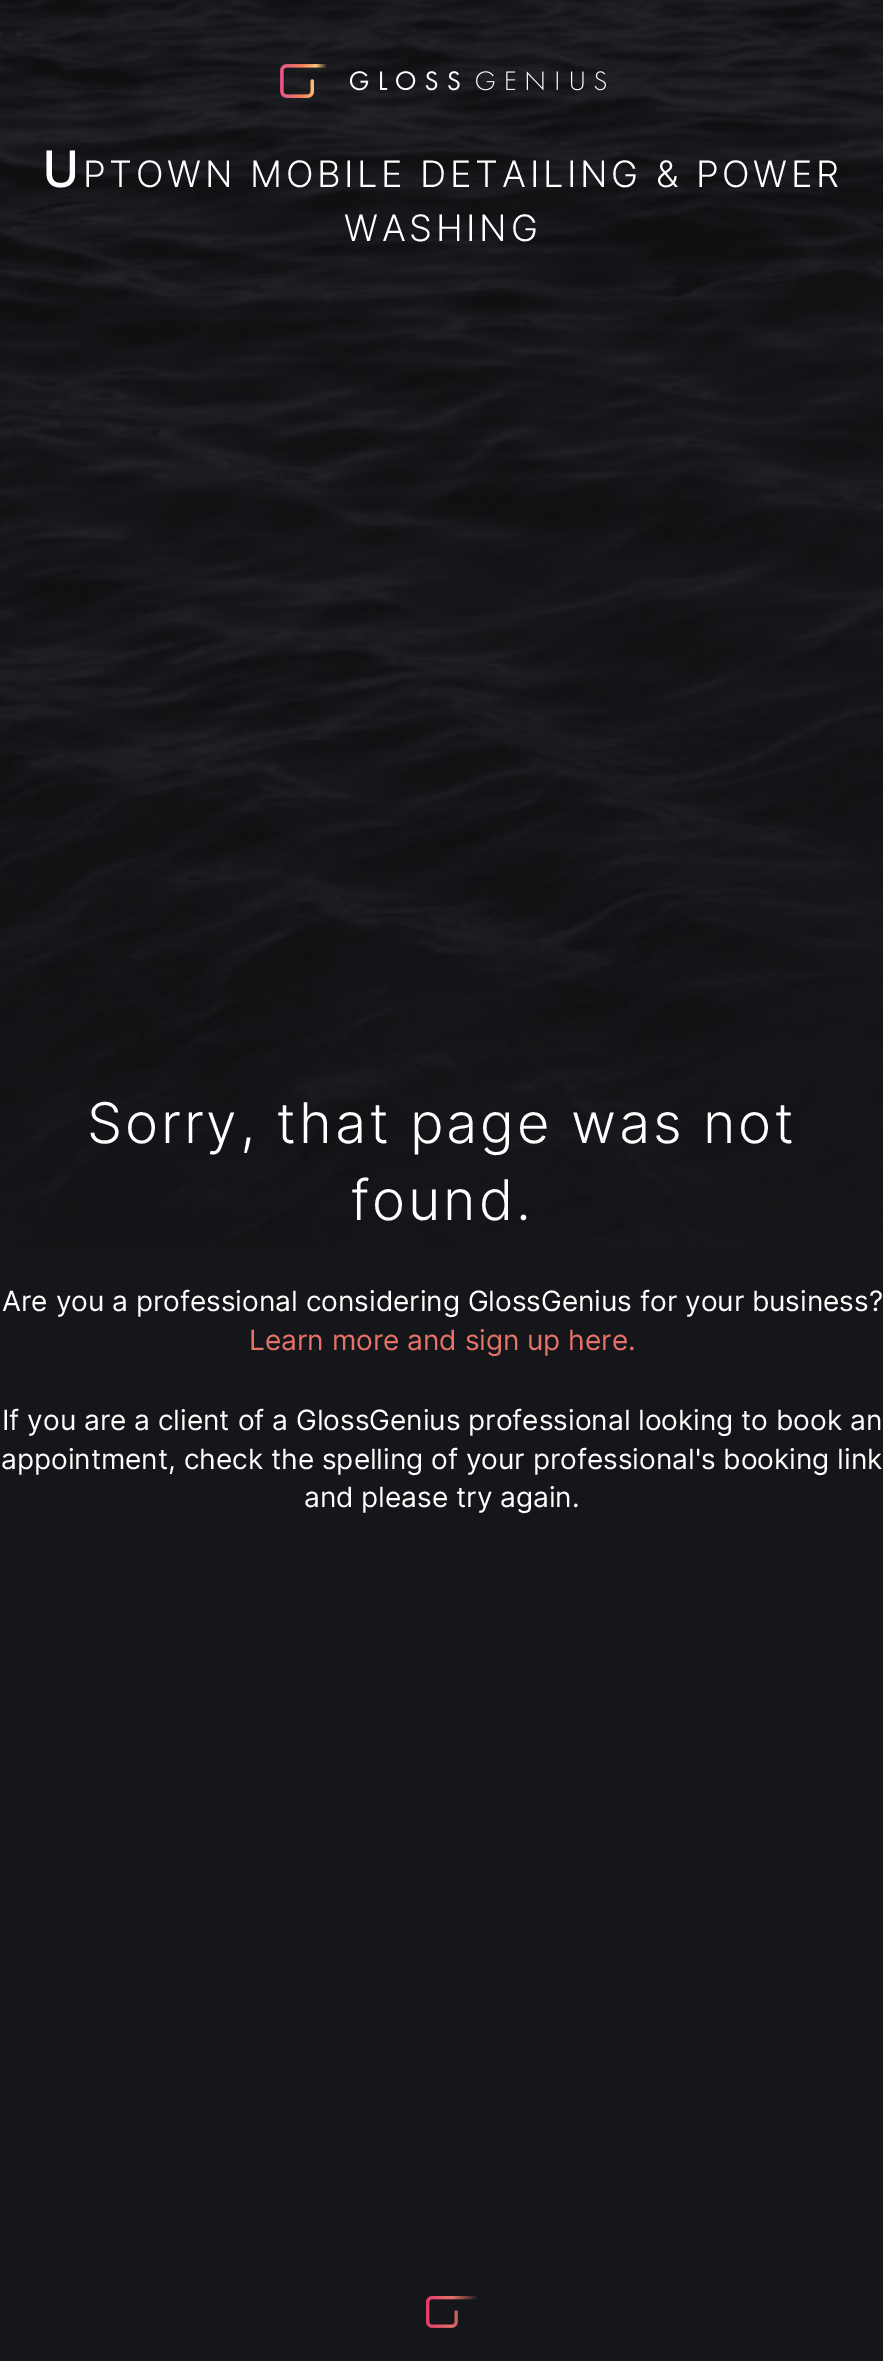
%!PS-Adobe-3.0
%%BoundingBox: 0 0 883 2361
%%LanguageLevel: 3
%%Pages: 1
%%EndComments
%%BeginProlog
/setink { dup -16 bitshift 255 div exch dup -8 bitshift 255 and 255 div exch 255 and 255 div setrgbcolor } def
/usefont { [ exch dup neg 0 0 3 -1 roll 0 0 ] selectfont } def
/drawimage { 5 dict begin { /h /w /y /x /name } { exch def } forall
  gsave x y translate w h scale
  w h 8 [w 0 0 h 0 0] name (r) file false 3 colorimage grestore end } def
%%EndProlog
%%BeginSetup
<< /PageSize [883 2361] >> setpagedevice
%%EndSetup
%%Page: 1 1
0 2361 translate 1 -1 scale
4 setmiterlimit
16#151619 setink
0 0 883 2361 rectfill
(img1.raw) 0 0 883 1248 drawimage
(img2.raw) 280 64 326 34 drawimage
/NotoSans-Medium 51 usefont
16#FFFFFF setink
42 187 moveto 3.65 0 (U) ashow
/Inter-Light 36.4 usefont
83 187 moveto 3.65 0 (PTOWN MOBILE DETAILING & POWER) ashow
344 241 moveto 3.65 0 (WASHING) ashow
/Inter-Light 56 usefont
87 1143 moveto 2.8 0 (Sorry, that page was not) ashow
350 1220 moveto 2.8 0 (found.) ashow
/Inter-Regular 28 usefont
2 1311 moveto (Are you a professional considering GlossGenius for your business?) show
16#E7726A setink
249 1350 moveto (Learn more and sign up here.) show
16#FFFFFF setink
[
    [(If you are a client of a GlossGenius professional looking to book an) 2 1430]
    [(appointment, check the spelling of your professional's booking link) 1 1469]
    [(and please try again.) 304 1507]
] { aload pop moveto show } forall
(img3.raw) 426 2296 51 32 drawimage
showpage
%%EOF
